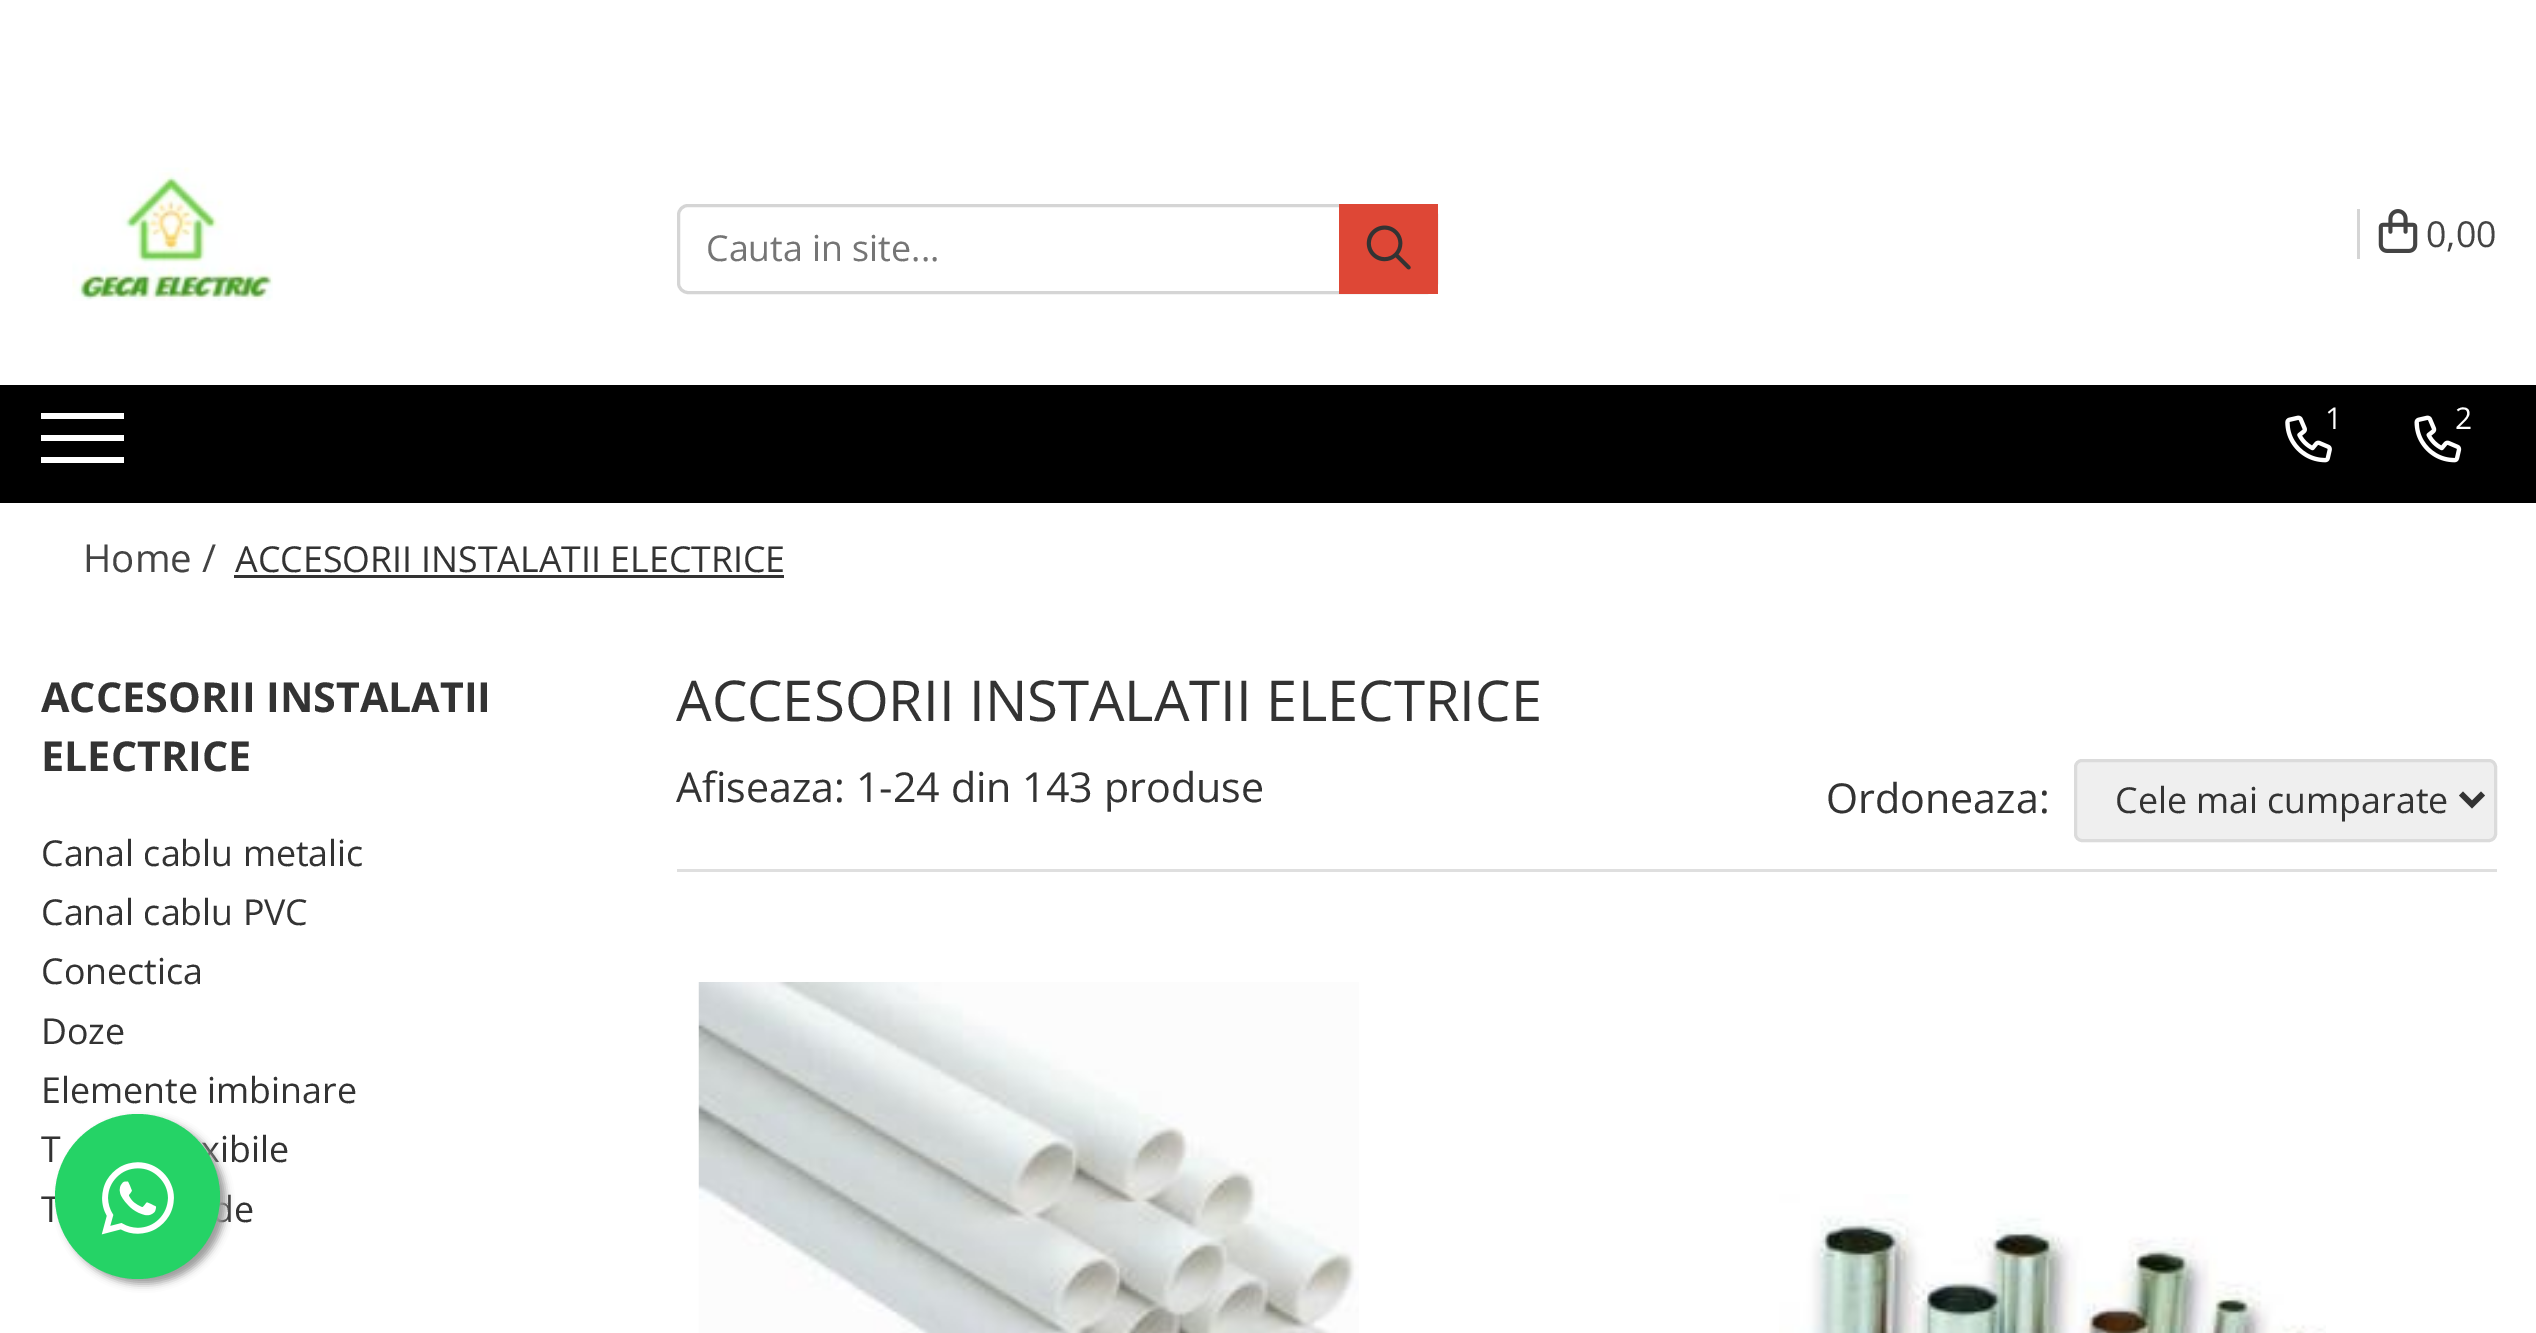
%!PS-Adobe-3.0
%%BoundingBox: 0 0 2536 1333
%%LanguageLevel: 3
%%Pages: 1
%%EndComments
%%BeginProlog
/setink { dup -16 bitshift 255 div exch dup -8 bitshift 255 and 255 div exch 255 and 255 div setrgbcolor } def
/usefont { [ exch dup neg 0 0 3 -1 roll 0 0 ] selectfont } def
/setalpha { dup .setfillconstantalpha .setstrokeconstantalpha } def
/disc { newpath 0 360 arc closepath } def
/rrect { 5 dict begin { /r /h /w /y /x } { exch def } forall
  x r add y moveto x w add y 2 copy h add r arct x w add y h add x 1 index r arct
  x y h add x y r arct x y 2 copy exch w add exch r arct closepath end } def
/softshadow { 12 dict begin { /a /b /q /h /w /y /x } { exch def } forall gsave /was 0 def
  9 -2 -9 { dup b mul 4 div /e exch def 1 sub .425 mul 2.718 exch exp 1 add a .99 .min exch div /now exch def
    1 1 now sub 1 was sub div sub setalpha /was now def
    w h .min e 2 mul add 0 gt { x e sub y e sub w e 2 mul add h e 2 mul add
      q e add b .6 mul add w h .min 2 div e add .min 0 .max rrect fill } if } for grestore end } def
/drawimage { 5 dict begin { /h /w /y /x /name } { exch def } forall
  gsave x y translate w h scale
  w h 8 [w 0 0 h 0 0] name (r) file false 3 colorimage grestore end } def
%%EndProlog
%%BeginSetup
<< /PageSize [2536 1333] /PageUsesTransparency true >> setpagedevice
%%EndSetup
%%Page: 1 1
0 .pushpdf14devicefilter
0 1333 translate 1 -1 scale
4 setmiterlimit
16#FFFFFF setink
0 0 2536 1333 rectfill
(img1.raw) 72 167 201 134 drawimage
16#D5D5D5 setink
3 setlinewidth
678.5 205.5 758 87 9.5 rrect stroke
/OpenSans-Regular 35.75 usefont
16#757575 setink
706 261 moveto (Cauta in site...) show
16#DE4736 setink
1339 204 99 90 rectfill
(img2.raw) 1366 225 45 45 drawimage
16#D5D5D5 setink
2357 209 3 50 rectfill
(img3.raw) 2378 209 40 44 drawimage
16#444444 setink
2426 247 moveto (0,00) show
[
    [0 385 2536 118 16#000000]
    [41 435 83 6 16#FFFFFF]
    [41 413 83 6 16#FFFFFF]
    [41 457 83 6 16#FFFFFF]
] { aload pop setink rectfill } forall
(img4.raw) 2285 415 47 48 drawimage
/OpenSans-Regular 30 usefont
2325 429 moveto -3 0 (1) ashow
(img5.raw) 2414 415 48 48 drawimage
2455 429 moveto -3 0 (2) ashow
/OpenSans-Regular 38.5 usefont
16#444444 setink
83 572 moveto (Home /) show
/OpenSans-Regular 35.75 usefont
16#333333 setink
235 572 moveto (ACCESORII INSTALATII ELECTRICE) show
234 575 550 3 rectfill
/OpenSans-Bold 41.25 usefont
41 712 moveto (ACCESORII INSTALATII) show
41 771 moveto (ELECTRICE) show
/OpenSans-Regular 35.75 usefont
[
    [(Canal cablu metalic) 41 866]
    [(Canal cablu PVC) 41 925]
    [(Conectica) 41 984]
    [(Doze) 41 1044]
    [(Elemente imbinare) 41 1103]
    [(T) 41 1162]
    [(xibile) 201 1162]
    [(T) 41 1222]
    [(de) 212 1222]
] { aload pop moveto show } forall
/OpenSans-Regular 56.25 usefont
676 721 moveto (ACCESORII INSTALATII ELECTRICE) show
16#DFDFDF setink
677 869 1820 3 rectfill
/OpenSans-Regular 41.25 usefont
16#333333 setink
676 802 moveto (Afiseaza: 1-24 din 143 produse) show
1826 813 moveto (Ordoneaza:) show
16#EFEFEF setink
2075.5 760.5 420 80 6.5 rrect gsave fill grestore
16#DBDBDB setink
stroke
16#333333 setink
5.5 setlinewidth
2461 793.5 moveto 2472 804.5 lineto 2483 793.5 lineto stroke
/OpenSans-Regular 35.75 usefont
2115 813 moveto (Cele mai cumparate) show
(img6.raw) 698 982 661 351 drawimage
(img7.raw) 1779 1194 547 139 drawimage
16#999999 setink
61 1119 165 165 82.5 4 1 softshadow
16#25D366 setink
137.5 1196.5 82.5 disc fill
(img8.raw) 101 1162 73 73 drawimage
.poppdf14devicefilter showpage
%%EOF
